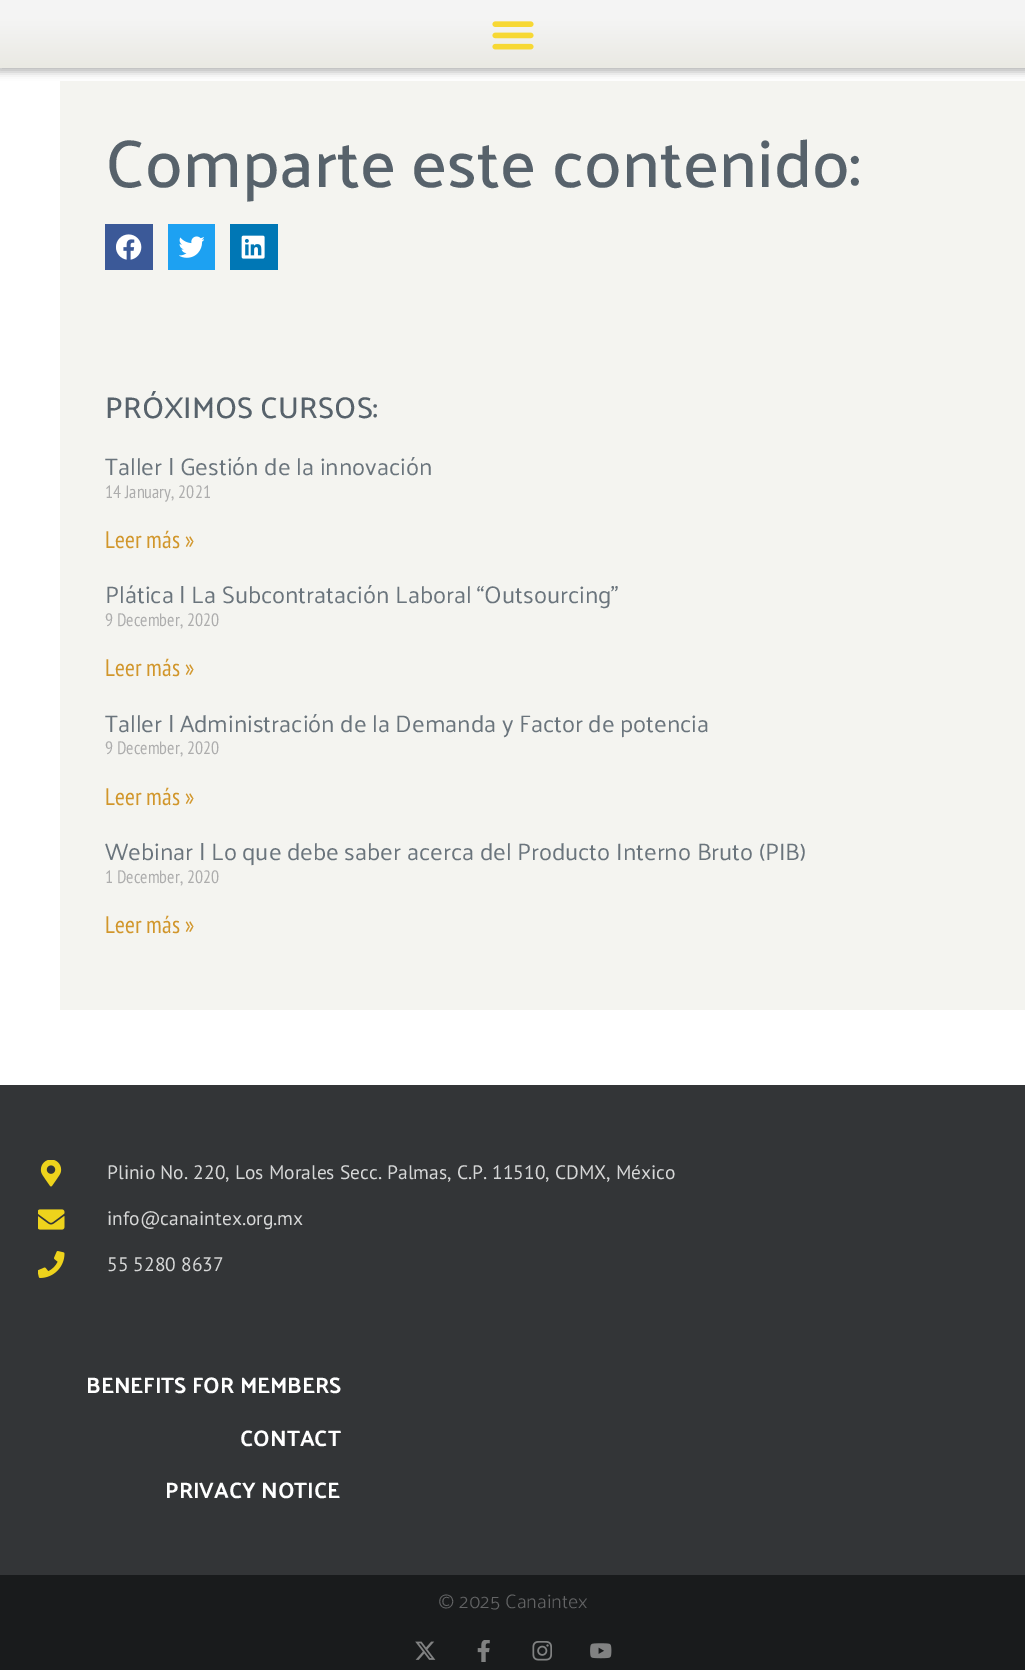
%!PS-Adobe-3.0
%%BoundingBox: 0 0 1025 1670
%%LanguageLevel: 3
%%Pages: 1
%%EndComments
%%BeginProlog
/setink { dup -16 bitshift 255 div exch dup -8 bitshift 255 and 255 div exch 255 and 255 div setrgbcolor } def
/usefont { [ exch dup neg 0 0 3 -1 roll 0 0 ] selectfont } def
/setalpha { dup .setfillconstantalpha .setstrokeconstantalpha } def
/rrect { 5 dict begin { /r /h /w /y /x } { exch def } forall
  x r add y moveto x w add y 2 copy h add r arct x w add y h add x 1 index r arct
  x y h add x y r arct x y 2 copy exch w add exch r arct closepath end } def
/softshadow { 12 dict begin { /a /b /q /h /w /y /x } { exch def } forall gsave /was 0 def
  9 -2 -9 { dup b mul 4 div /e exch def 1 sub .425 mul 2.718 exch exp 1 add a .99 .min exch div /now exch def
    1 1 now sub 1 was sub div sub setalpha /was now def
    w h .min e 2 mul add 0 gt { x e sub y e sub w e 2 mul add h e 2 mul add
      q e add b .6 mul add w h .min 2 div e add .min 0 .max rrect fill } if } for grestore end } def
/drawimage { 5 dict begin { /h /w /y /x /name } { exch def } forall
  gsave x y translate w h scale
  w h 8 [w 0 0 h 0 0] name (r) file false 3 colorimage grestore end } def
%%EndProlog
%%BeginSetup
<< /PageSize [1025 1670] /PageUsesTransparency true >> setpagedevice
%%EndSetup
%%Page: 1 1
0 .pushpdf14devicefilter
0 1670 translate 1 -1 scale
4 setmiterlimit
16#FFFFFF setink
0 0 1025 1670 rectfill
16#F4F4F0 setink
60 81 965 929 rectfill
16#000000 setink
-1 2 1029 70 0 4 0.27 softshadow
gsave 0 0 moveto 1025 0 lineto 1025 68 lineto 0 68 lineto closepath clip newpath
<< /ShadingType 2 /ColorSpace /DeviceRGB /Coords [513 0 513 68] /Extend [true true] /Function << /FunctionType 3 /Domain [0 1] /Functions [<< /FunctionType 2 /Domain [0 1] /C0 [0.957 0.957 0.957] /C1 [0.957 0.957 0.957] /N 1 >> << /FunctionType 2 /Domain [0 1] /C0 [0.957 0.957 0.957] /C1 [0.918 0.914 0.89] /N 1 >>] /Bounds [0.28] /Encode [0 1 0 1] >> >> shfill grestore
(img1.raw) 492 21 42 29 drawimage
/Palanquin-Medium 67.5 usefont
16#57626B setink
105 187 moveto (Comparte este contenido:) show
16#3B5998 setink
105 224 48 46 rectfill
(img2.raw) 116 234 26 26 drawimage
16#1DA1F2 setink
168 224 47 46 rectfill
(img3.raw) 179 236 25 22 drawimage
16#0077B5 setink
230 224 48 46 rectfill
(img4.raw) 241 235 24 24 drawimage
/Palanquin-Medium 30 usefont
16#57626B setink
105 418 moveto (PRÓXIMOS CURSOS:) show
/Palanquin-Regular 24 usefont
16#6A747C setink
105 475 moveto (Taller | Gestión de la innovación) show
/PTSansNarrow-Regular 18 usefont
16#ADADAD setink
105 498 moveto (14 January, 2021) show
/PTSansNarrow-Regular 24 usefont
16#D1962B setink
105 548 moveto (Leer más ») show
/Palanquin-Regular 24 usefont
16#6A747C setink
105 603 moveto (Plática | La Subcontratación Laboral “Outsourcing”) show
/PTSansNarrow-Regular 18 usefont
16#ADADAD setink
105 626 moveto (9 December, 2020) show
/PTSansNarrow-Regular 24 usefont
16#D1962B setink
105 676 moveto (Leer más ») show
/Palanquin-Regular 24 usefont
16#6A747C setink
105 732 moveto (Taller | Administración de la Demanda y Factor de potencia) show
/PTSansNarrow-Regular 18 usefont
16#ADADAD setink
105 754 moveto (9 December, 2020) show
/PTSansNarrow-Regular 24 usefont
16#D1962B setink
105 805 moveto (Leer más ») show
/Palanquin-Regular 24 usefont
16#6A747C setink
105 860 moveto (Webinar | Lo que debe saber acerca del Producto Interno Bruto \(PIB\)) show
/PTSansNarrow-Regular 18 usefont
16#ADADAD setink
105 883 moveto (1 December, 2020) show
/PTSansNarrow-Regular 24 usefont
16#D1962B setink
105 933 moveto (Leer más ») show
16#333537 setink
0 1085 1025 490 rectfill
(img5.raw) 40 1160 22 27 drawimage
/PTSans-Regular 19.5 usefont
16#D6D7D7 setink
107 1179 moveto (Plinio No. 220, Los Morales Secc. Palmas, C.P. 11510, CDMX, México) show
(img6.raw) 38 1209 27 21 drawimage
107 1225 moveto (info@canaintex.org.mx) show
(img7.raw) 38 1251 27 27 drawimage
107 1271 moveto (55 5280 8637) show
/Palanquin-Bold 22.5 usefont
16#FFFFFF setink
[
    [(BENEFITS FOR MEMBERS) 86 1393]
    [(CONTACT) 240 1446]
    [(PRIVACY NOTICE) 165 1498]
] { aload pop moveto show } forall
16#191B1C setink
0 1575 1025 95 rectfill
/Palanquin-Light 19.5 usefont
16#636465 setink
438 1608 moveto (© 2025 Canaintex) show
(img8.raw) 415 1641 21 19 drawimage
(img9.raw) 477 1640 13 22 drawimage
(img10.raw) 532 1641 20 20 drawimage
(img11.raw) 590 1643 22 16 drawimage
.poppdf14devicefilter showpage
%%EOF
